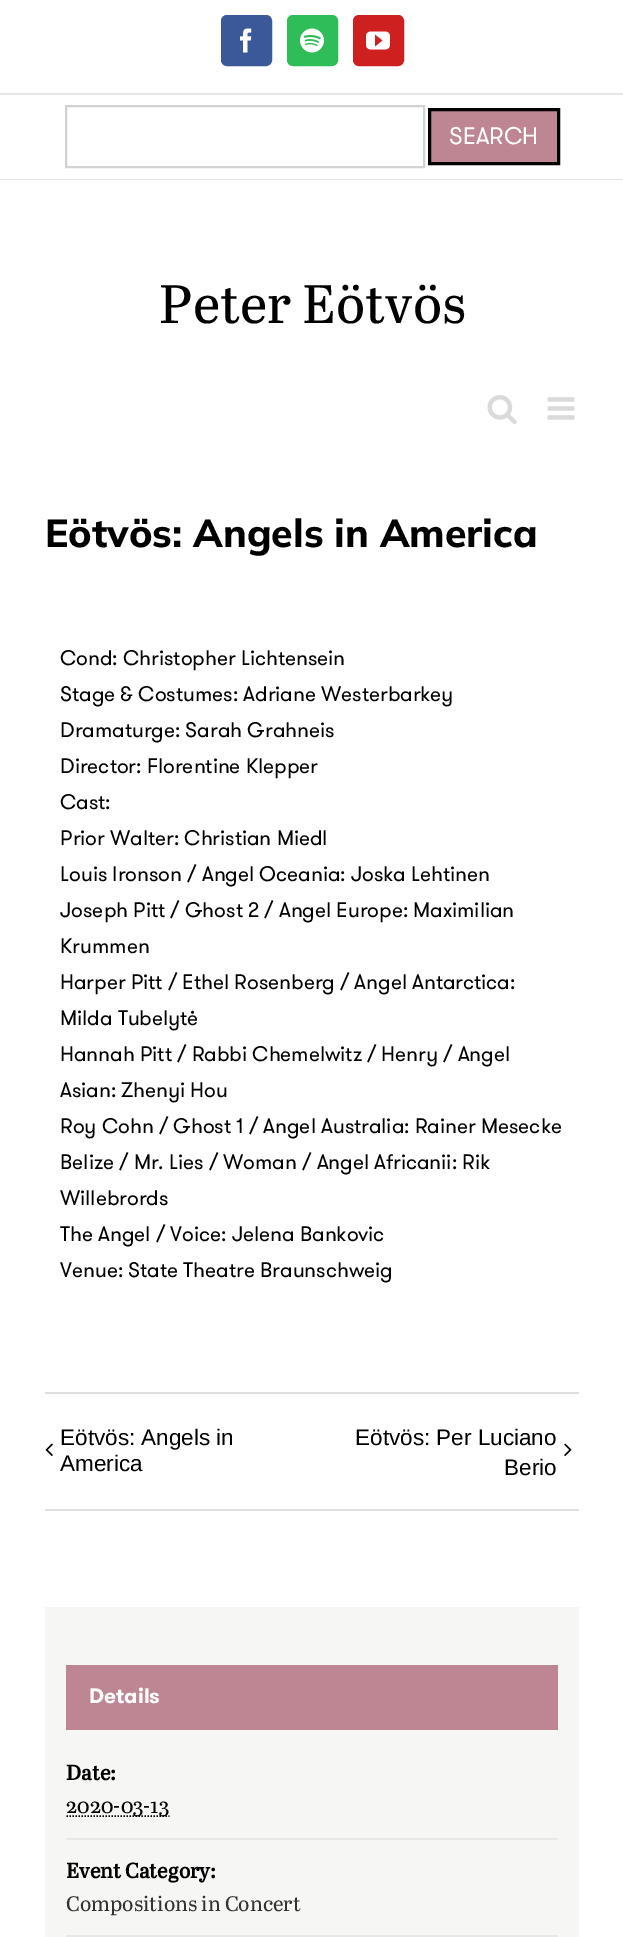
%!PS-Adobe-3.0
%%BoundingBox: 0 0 623 1937
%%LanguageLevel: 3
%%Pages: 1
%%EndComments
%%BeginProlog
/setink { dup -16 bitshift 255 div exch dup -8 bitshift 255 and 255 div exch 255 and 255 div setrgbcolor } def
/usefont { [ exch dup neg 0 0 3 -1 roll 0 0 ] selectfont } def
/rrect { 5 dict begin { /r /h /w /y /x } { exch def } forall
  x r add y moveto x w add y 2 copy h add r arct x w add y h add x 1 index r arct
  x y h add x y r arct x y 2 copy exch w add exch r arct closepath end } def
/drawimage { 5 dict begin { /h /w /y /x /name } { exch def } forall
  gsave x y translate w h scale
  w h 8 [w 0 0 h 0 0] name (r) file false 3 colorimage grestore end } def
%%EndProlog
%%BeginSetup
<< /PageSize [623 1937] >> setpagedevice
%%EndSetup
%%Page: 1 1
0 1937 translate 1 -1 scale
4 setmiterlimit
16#FFFFFF setink
0 0 623 1937 rectfill
16#E5E5E5 setink
0 179 623 1 rectfill
0 93 623 2 rectfill
16#3B5998 setink
222 16 49 49 5 rrect gsave fill grestore
2 setlinewidth
stroke
(img1.raw) 240 28 12 25 drawimage
16#2EBD59 setink
288 16 49 49 5 rrect gsave fill grestore
stroke
(img2.raw) 300 28 24 25 drawimage
16#CD201F setink
354 16 49 49 5 rrect gsave fill grestore
stroke
(img3.raw) 366 31 24 19 drawimage
16#D2D2D2 setink
66 106 358 61 rectstroke
16#BE8592 setink
429.5 109.5 moveto 558.5 109.5 lineto 558.5 163.5 lineto 429.5 163.5 lineto closepath gsave fill grestore
16#000000 setink
3 setlinewidth
stroke
/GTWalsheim-Regular 24 usefont
16#FFFFFF setink
449 144 moveto (SEARCH) show
/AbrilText-Regular 54 usefont
16#000000 setink
159 323 moveto (Peter Eötvös) show
(img4.raw) 487 395 30 30 drawimage
(img5.raw) 547 397 28 23 drawimage
/Mulish-ExtraLight 39 usefont
45 547 moveto (Eötvös: Angels in America) show
/GTWalsheim-Regular 21 usefont
[
    [(Cond: Christopher Lichtensein) 60 665]
    [(Stage & Costumes: Adriane Westerbarkey) 60 701]
    [(Dramaturge: Sarah Grahneis) 60 737]
    [(Director: Florentine Klepper) 60 773]
    [(Cast:) 60 809]
    [(Prior Walter: Christian Miedl) 60 845]
    [(Louis Ironson / Angel Oceania: Joska Lehtinen) 60 881]
    [(Joseph Pitt / Ghost 2 / Angel Europe: Maximilian) 60 917]
    [(Krummen) 60 953]
    [(Harper Pitt / Ethel Rosenberg / Angel Antarctica:) 60 989]
    [(Milda Tubelytė) 60 1025]
    [(Hannah Pitt / Rabbi Chemelwitz / Henry / Angel) 60 1061]
    [(Asian: Zhenyi Hou) 60 1097]
    [(Roy Cohn / Ghost 1 / Angel Australia: Rainer Mesecke) 60 1133]
    [(Belize / Mr. Lies / Woman / Angel Africanii: Rik) 60 1169]
    [(Willebrords) 60 1205]
    [(The Angel / Voice: Jelena Bankovic) 60 1241]
    [(Venue: State Theatre Braunschweig) 60 1277]
] { aload pop moveto show } forall
16#E0DEDE setink
45 1392 534 2 rectfill
45 1509 534 2 rectfill
(img6.raw) 45 1443 8 13 drawimage
/LiberationSans-Regular 22.5 usefont
16#000000 setink
[
    [(Eötvös: Angels in) 60 1445]
    [(America) 60 1471]
    [(Eötvös: Per Luciano) 355 1445]
] { aload pop moveto show } forall
(img7.raw) 564 1443 8 13 drawimage
504 1475 moveto (Berio) show
16#F6F6F5 setink
45 1607 534 330 rectfill
16#BE8592 setink
66 1665 492 65 rectfill
/GTWalsheim-Bold 21 usefont
16#FFFFFF setink
89 1703 moveto (Details) show
/AbrilText-Bold 21 usefont
16#000000 setink
66 1780 moveto (Date:) show
16#E8E8E8 setink
66 1838 492 2 rectfill
16#000000 setink
1.5 setlinewidth
[1.5 1.5] 0 setdash
66.5 1816 moveto 169.5 1816 lineto stroke
/AbrilText-Regular 21 usefont
66 1813 moveto (2020-03-13) show
/AbrilText-Bold 21 usefont
66 1878 moveto (Event Category:) show
16#E8E8E8 setink
66 1935 492 2 rectfill
/AbrilText-Regular 21 usefont
16#333333 setink
66 1911 moveto (Compositions in Concert) show
showpage
%%EOF
